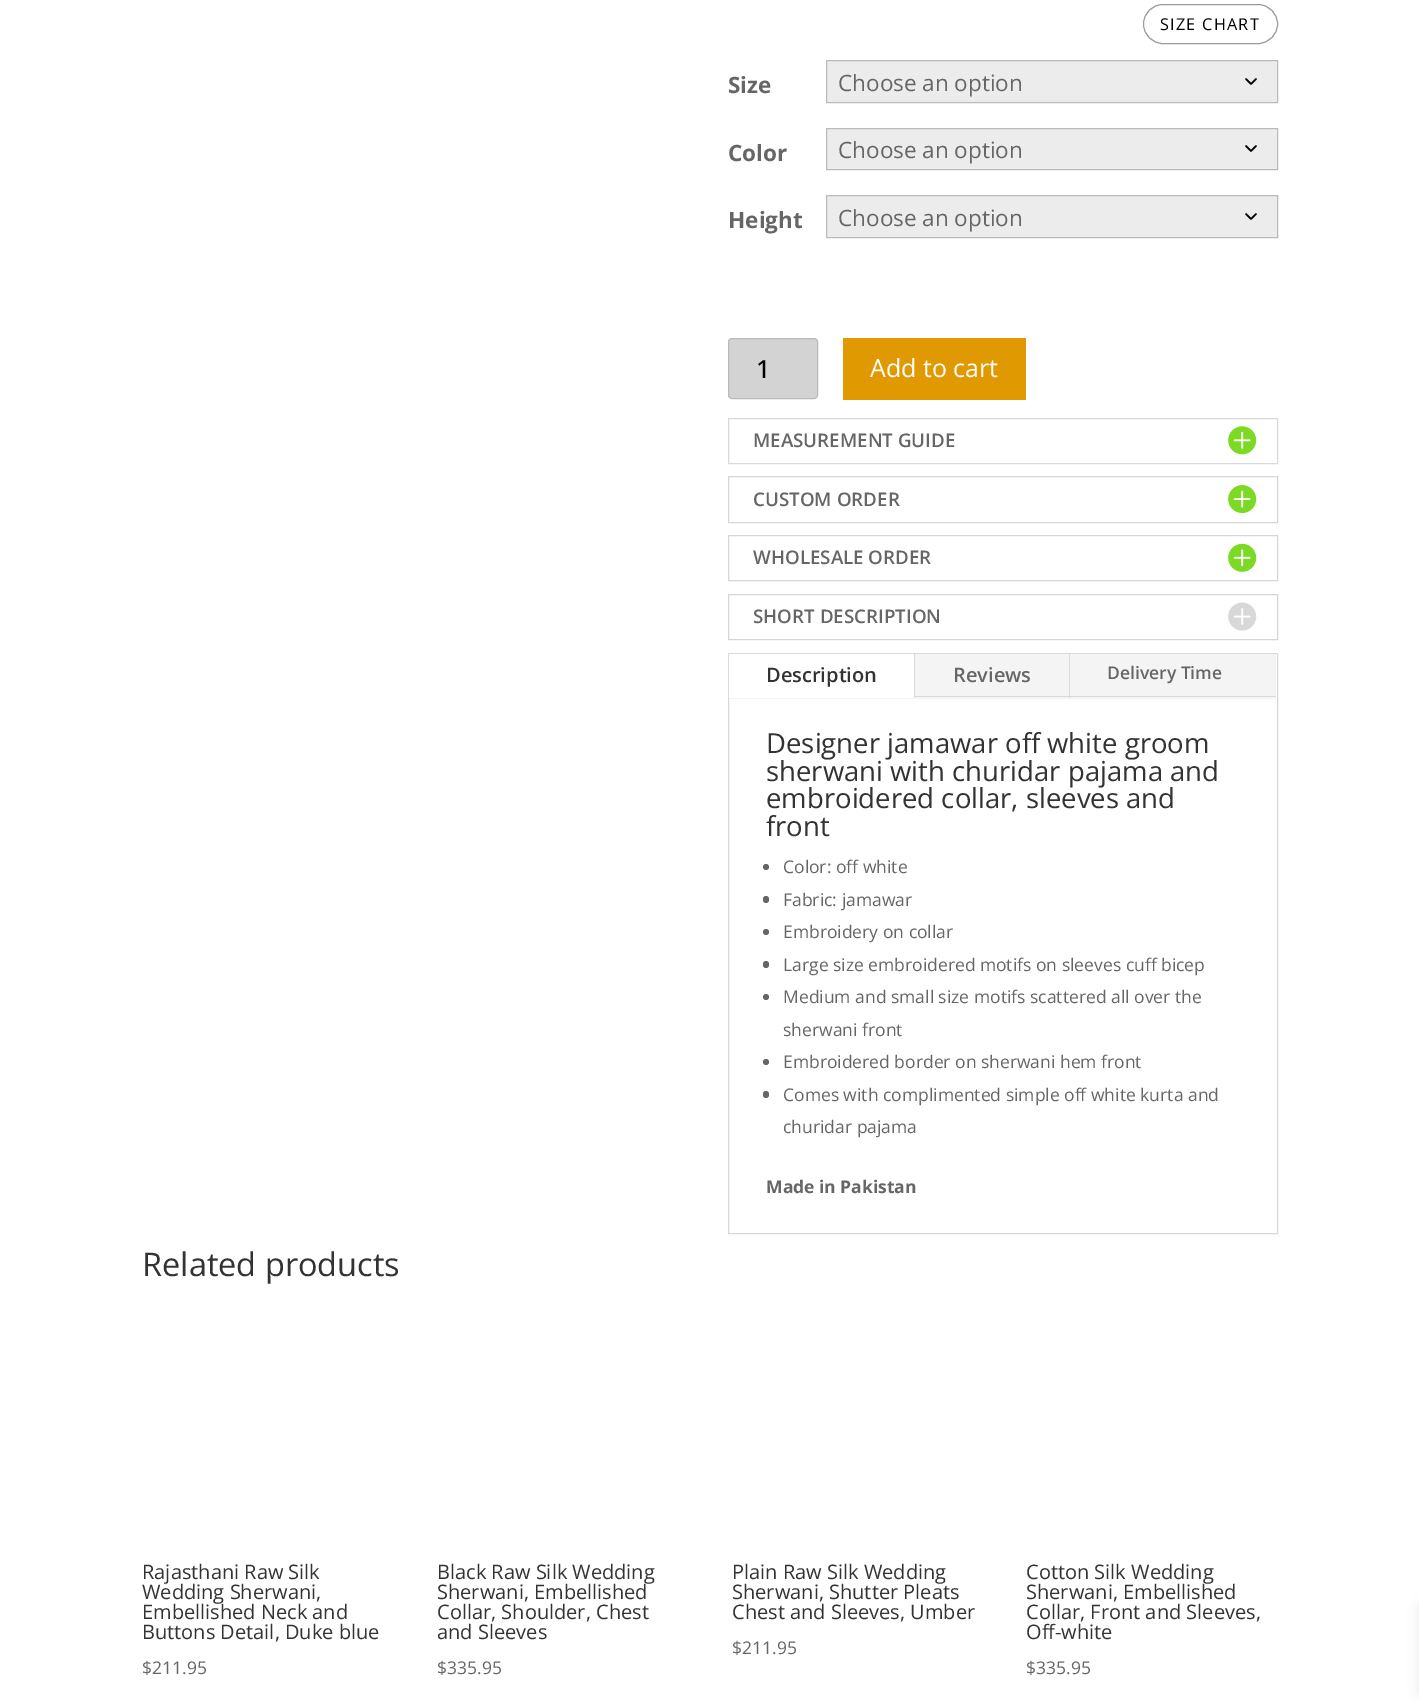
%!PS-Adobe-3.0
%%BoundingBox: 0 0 1419 1700
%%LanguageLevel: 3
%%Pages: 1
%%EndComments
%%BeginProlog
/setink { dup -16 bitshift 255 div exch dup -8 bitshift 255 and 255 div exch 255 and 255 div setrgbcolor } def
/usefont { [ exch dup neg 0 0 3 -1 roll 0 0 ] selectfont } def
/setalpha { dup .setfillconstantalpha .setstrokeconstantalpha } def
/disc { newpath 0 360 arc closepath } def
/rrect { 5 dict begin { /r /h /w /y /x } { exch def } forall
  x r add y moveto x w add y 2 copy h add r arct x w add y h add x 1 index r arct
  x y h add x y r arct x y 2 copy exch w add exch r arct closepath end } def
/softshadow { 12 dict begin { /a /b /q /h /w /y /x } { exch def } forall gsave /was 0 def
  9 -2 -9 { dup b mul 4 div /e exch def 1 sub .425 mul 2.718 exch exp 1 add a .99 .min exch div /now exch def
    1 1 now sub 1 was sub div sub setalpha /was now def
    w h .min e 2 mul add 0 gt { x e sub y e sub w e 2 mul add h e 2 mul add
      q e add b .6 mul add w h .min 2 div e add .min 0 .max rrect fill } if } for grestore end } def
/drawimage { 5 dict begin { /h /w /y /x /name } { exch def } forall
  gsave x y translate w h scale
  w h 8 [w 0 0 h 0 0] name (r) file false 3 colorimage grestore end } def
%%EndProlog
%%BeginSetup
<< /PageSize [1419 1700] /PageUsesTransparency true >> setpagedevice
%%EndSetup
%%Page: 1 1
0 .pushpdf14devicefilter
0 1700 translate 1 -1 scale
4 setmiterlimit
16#FFFFFF setink
0 0 1419 1700 rectfill
16#9B9B9B setink
1143.5 4.5 134 39 19.5 rrect stroke
/OpenSans-Regular 16.25 usefont
16#000000 setink
1160 30 moveto 1.25 0 (SIZE CHART) ashow
/OpenSans-Bold 22.5 usefont
16#666666 setink
728 93 moveto (Size) show
16#ECECEC setink
827 61 450 41 rectfill
16#000000 setink
1.7 setlinewidth
1 setlinecap
1 setlinejoin
1246 79 moveto 1251 84 lineto 1256 79 lineto stroke
16#BABABA setink
1 setlinewidth
0 setlinecap
0 setlinejoin
826.5 60.5 451 42 rectstroke
/OpenSans-Regular 22.5 usefont
16#666666 setink
838 91 moveto (Choose an option) show
/OpenSans-Bold 22.5 usefont
728 161 moveto (Color) show
16#ECECEC setink
827 129 450 40 rectfill
16#000000 setink
1.7 setlinewidth
1 setlinecap
1 setlinejoin
1246 146 moveto 1251 151 lineto 1256 146 lineto stroke
16#BABABA setink
1 setlinewidth
0 setlinecap
0 setlinejoin
826.5 128.5 451 41 rectstroke
/OpenSans-Regular 22.5 usefont
16#666666 setink
838 158 moveto (Choose an option) show
/OpenSans-Bold 22.5 usefont
728 228 moveto (Height) show
16#ECECEC setink
827 196 450 41 rectfill
16#000000 setink
1.7 setlinewidth
1 setlinecap
1 setlinejoin
1246 214 moveto 1251 219 lineto 1256 214 lineto stroke
16#BABABA setink
1 setlinewidth
0 setlinecap
0 setlinejoin
826.5 195.5 451 42 rectstroke
/OpenSans-Regular 22.5 usefont
16#666666 setink
838 226 moveto (Choose an option) show
16#D3D3D3 setink
728.5 338.5 89 60 3.5 rrect gsave fill grestore
16#BABABA setink
stroke
/OpenSans-Medium 25 usefont
16#000000 setink
756 378 moveto (1) show
16#E09900 setink
843 338 183 62 rectfill
/OpenSans-Regular 25 usefont
16#FFFFFF setink
870 377 moveto (Add to cart) show
16#D9D9D9 setink
728.5 418.5 549 45 rectstroke
/OpenSans-SemiBold 18.75 usefont
16#666666 setink
753 447 moveto (MEASUREMENT GUIDE) show
(img1.raw) 1228 426 29 29 drawimage
16#D6D6D6 setink
728.5 476.5 549 46 rectstroke
16#666666 setink
753 506 moveto (CUSTOM ORDER) show
(img2.raw) 1228 485 29 29 drawimage
16#D6D6D6 setink
728.5 535.5 549 45 rectstroke
16#666666 setink
753 564 moveto (WHOLESALE ORDER) show
(img3.raw) 1228 543 29 29 drawimage
16#D6D6D6 setink
728.5 594.5 549 45 rectstroke
16#666666 setink
753 623 moveto (SHORT DESCRIPTION) show
(img4.raw) 1228 602 29 29 drawimage
16#D9D9D9 setink
728.5 653.5 549 580 rectstroke
[
    [729 654 547 45 16#F4F4F4]
    [729 654 185 44 16#FFFFFF]
    [914 654 1 44 16#D9D9D9]
] { aload pop setink rectfill } forall
/OpenSans-SemiBold 20 usefont
16#333333 setink
766 682 moveto (Description) show
16#D9D9D9 setink
915 696 361 1 rectfill
1069 654 1 44 rectfill
16#666666 setink
953 682 moveto (Reviews) show
/OpenSans-SemiBold 17.5 usefont
1107 679 moveto (Delivery Time) show
/OpenSans-Regular 27.5 usefont
16#333333 setink
[
    [(Designer jamawar off white groom) 766 753]
    [(sherwani with churidar pajama and) 766 781]
    [(embroidered collar, sleeves and) 766 808]
    [(front) 766 836]
] { aload pop moveto show } forall
16#666666 setink
766 867 3 disc fill
/OpenSans-Regular 17.5 usefont
783 873 moveto (Color: off white) show
763 896 6 7 3 rrect fill
783 906 moveto (Fabric: jamawar) show
766 932 3 disc fill
783 938 moveto (Embroidery on collar) show
763 961 6 7 3 rrect fill
783 971 moveto (Large size embroidered motifs on sleeves cuff bicep) show
766 997 3 disc fill
783 1003 moveto (Medium and small size motifs scattered all over the) show
783 1036 moveto (sherwani front) show
766 1062 3 disc fill
783 1068 moveto (Embroidered border on sherwani hem front) show
763 1091 6 7 3 rrect fill
783 1101 moveto (Comes with complimented simple off white kurta and) show
783 1133 moveto (churidar pajama) show
/OpenSans-Bold 17.5 usefont
766 1193 moveto (Made in Pakistan) show
/OpenSans-Regular 32.5 usefont
16#333333 setink
142 1276 moveto (Related products) show
/OpenSans-Regular 20 usefont
[
    [(Rajasthani Raw Silk) 142 1579]
    [(Wedding Sherwani,) 142 1599]
    [(Embellished Neck and) 142 1619]
    [(Buttons Detail, Duke blue) 142 1639]
] { aload pop moveto show } forall
/OpenSans-Regular 17.5 usefont
16#666666 setink
142 1674 moveto ($211.95) show
/OpenSans-Regular 20 usefont
16#333333 setink
[
    [(Black Raw Silk Wedding) 437 1579]
    [(Sherwani, Embellished) 437 1599]
    [(Collar, Shoulder, Chest) 437 1619]
    [(and Sleeves) 437 1639]
] { aload pop moveto show } forall
/OpenSans-Regular 17.5 usefont
16#666666 setink
437 1674 moveto ($335.95) show
/OpenSans-Regular 20 usefont
16#333333 setink
[
    [(Plain Raw Silk Wedding) 732 1579]
    [(Sherwani, Shutter Pleats) 732 1599]
    [(Chest and Sleeves, Umber) 732 1619]
] { aload pop moveto show } forall
/OpenSans-Regular 17.5 usefont
16#666666 setink
732 1654 moveto ($211.95) show
/OpenSans-Regular 20 usefont
16#333333 setink
[
    [(Cotton Silk Wedding) 1026 1579]
    [(Sherwani, Embellished) 1026 1599]
    [(Collar, Front and Sleeves,) 1026 1619]
    [(Off-white) 1026 1639]
] { aload pop moveto show } forall
/OpenSans-Regular 17.5 usefont
16#666666 setink
1026 1674 moveto ($335.95) show
16#000000 setink
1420 1606 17 88 0 6 0.1 softshadow
.poppdf14devicefilter showpage
%%EOF
